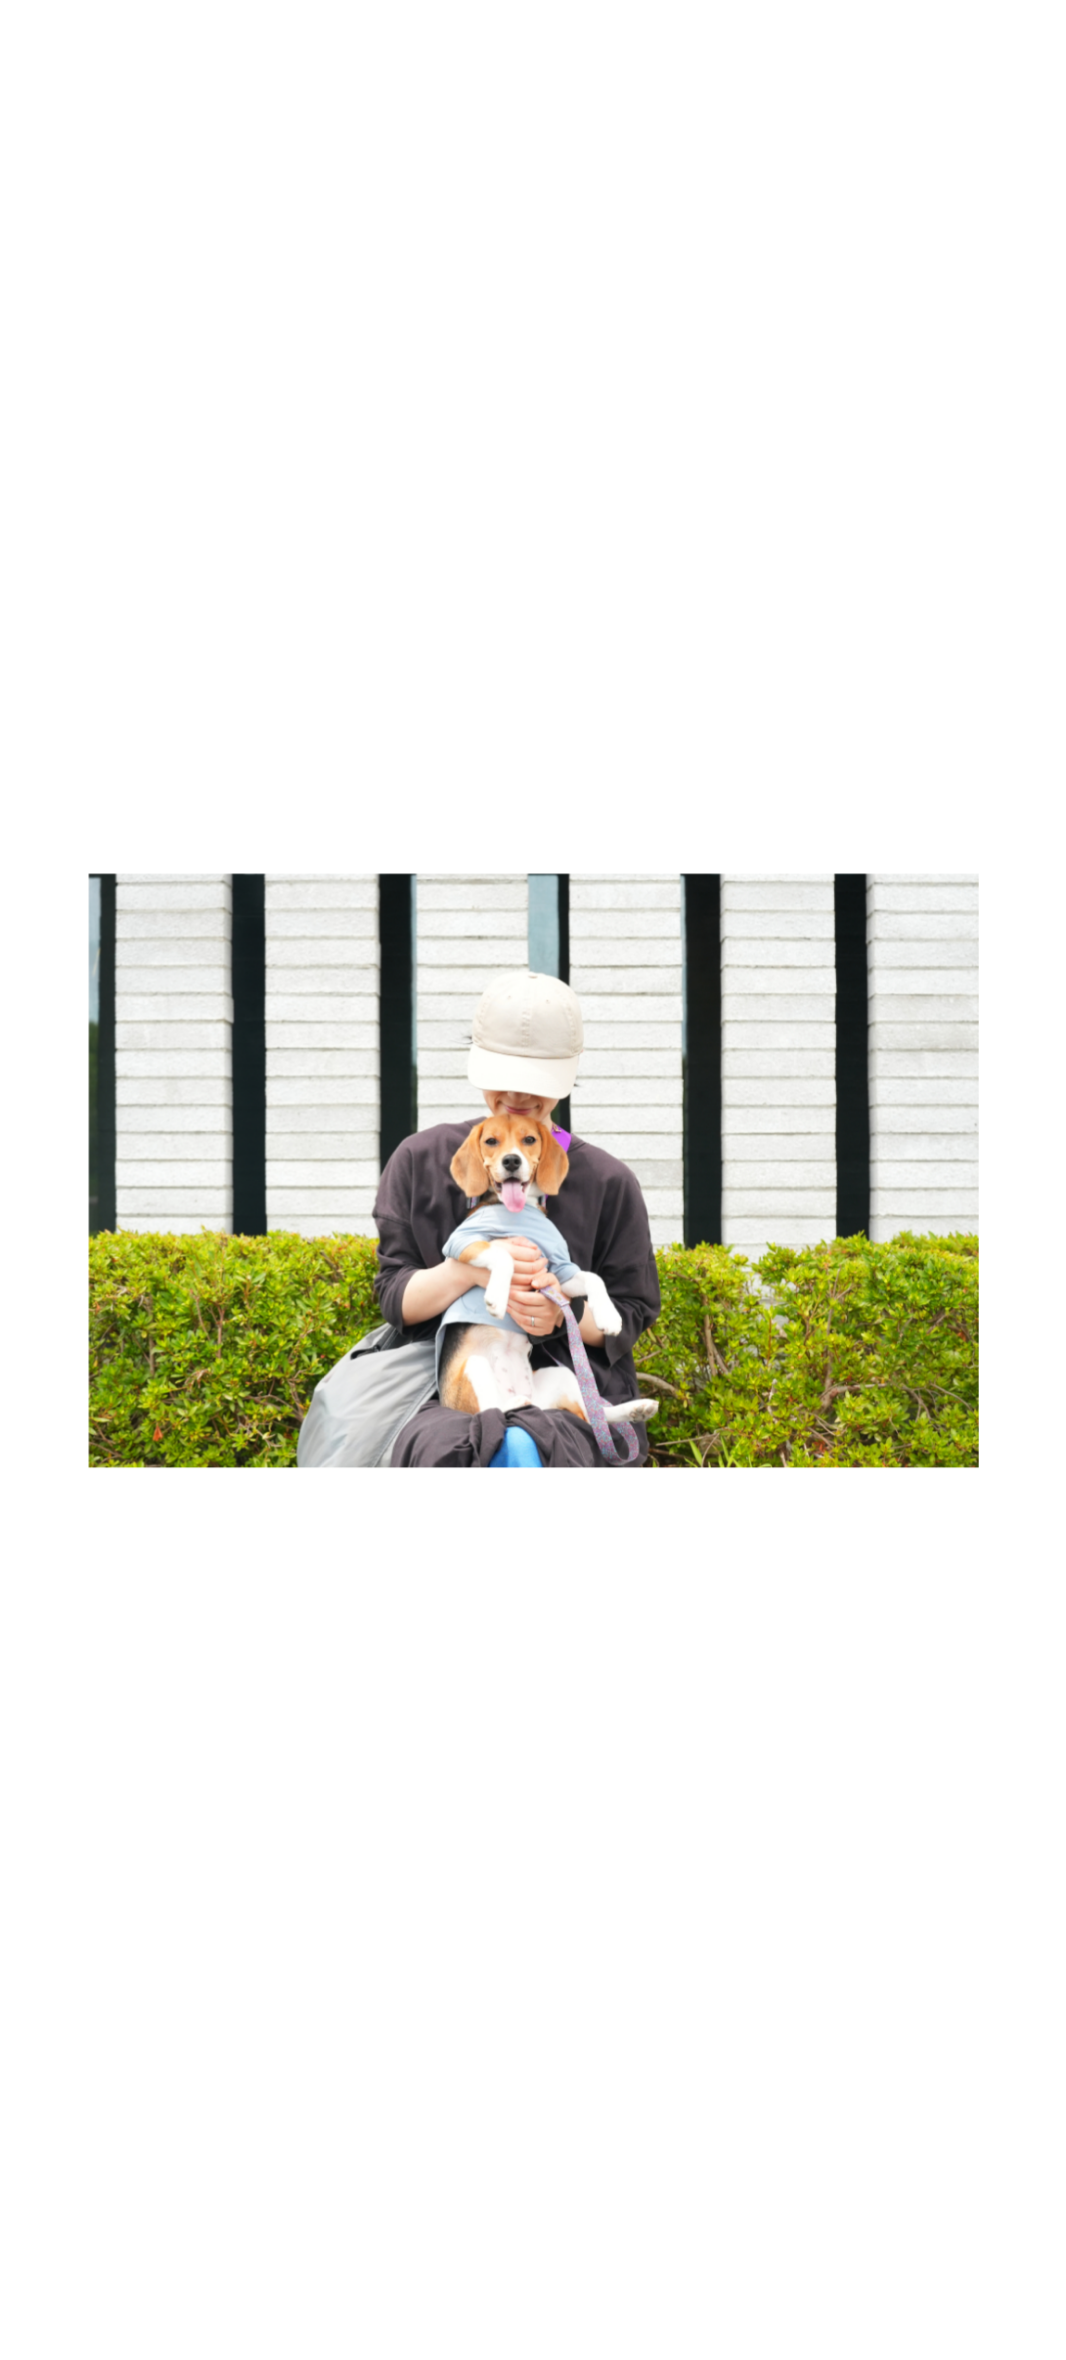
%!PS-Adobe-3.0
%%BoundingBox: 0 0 1066 2360
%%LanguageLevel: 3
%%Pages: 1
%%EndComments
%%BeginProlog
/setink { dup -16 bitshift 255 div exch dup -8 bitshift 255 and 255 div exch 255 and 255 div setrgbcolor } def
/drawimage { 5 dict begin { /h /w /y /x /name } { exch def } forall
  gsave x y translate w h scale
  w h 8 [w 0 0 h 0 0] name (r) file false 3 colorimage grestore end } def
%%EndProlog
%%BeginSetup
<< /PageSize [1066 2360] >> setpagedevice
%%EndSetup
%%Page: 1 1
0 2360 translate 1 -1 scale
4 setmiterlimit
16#FFFFFF setink
0 0 1066 2360 rectfill
(img1.raw) 88 873 891 596 drawimage
showpage
%%EOF
